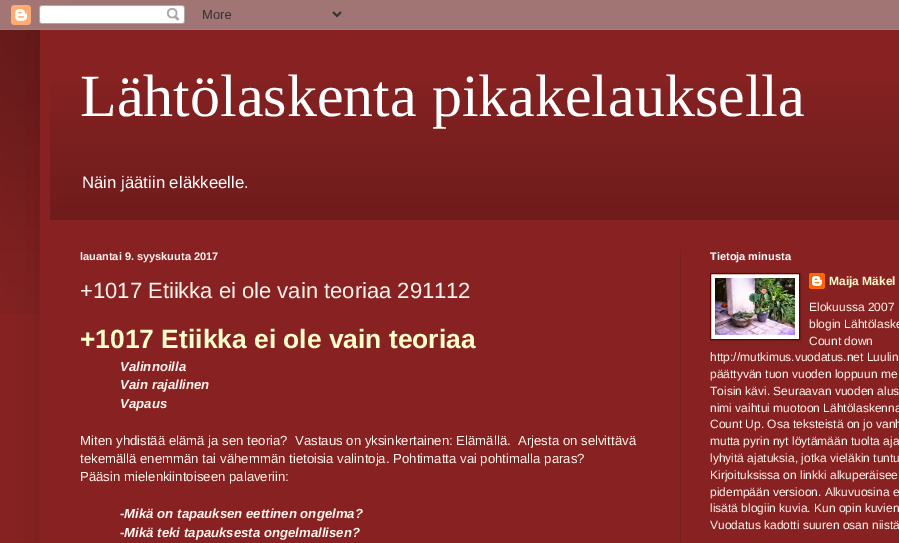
%!PS-Adobe-3.0
%%BoundingBox: 0 0 899 543
%%LanguageLevel: 3
%%Pages: 1
%%EndComments
%%BeginProlog
/setink { dup -16 bitshift 255 div exch dup -8 bitshift 255 and 255 div exch 255 and 255 div setrgbcolor } def
/usefont { [ exch dup neg 0 0 3 -1 roll 0 0 ] selectfont } def
/setalpha { dup .setfillconstantalpha .setstrokeconstantalpha } def
/rrect { 5 dict begin { /r /h /w /y /x } { exch def } forall
  x r add y moveto x w add y 2 copy h add r arct x w add y h add x 1 index r arct
  x y h add x y r arct x y 2 copy exch w add exch r arct closepath end } def
/softshadow { 12 dict begin { /a /b /q /h /w /y /x } { exch def } forall gsave /was 0 def
  9 -2 -9 { dup b mul 4 div /e exch def 1 sub .425 mul 2.718 exch exp 1 add a .99 .min exch div /now exch def
    1 1 now sub 1 was sub div sub setalpha /was now def
    w h .min e 2 mul add 0 gt { x e sub y e sub w e 2 mul add h e 2 mul add
      q e add b .6 mul add w h .min 2 div e add .min 0 .max rrect fill } if } for grestore end } def
/drawimage { 5 dict begin { /h /w /y /x /name } { exch def } forall
  gsave x y translate w h scale
  w h 8 [w 0 0 h 0 0] name (r) file false 3 colorimage grestore end } def
%%EndProlog
%%BeginSetup
<< /PageSize [899 543] /PageUsesTransparency true >> setpagedevice
%%EndSetup
%%Page: 1 1
0 .pushpdf14devicefilter
0 543 translate 1 -1 scale
4 setmiterlimit
16#882222 setink
0 0 899 543 rectfill
(img1.raw) 0 0 899 314 drawimage
16#000000 setink
40 30 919 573 0 20 0.15 softshadow
(img2.raw) 0 0 899 30 drawimage
16#882222 setink
40 30 859 513 rectfill
(img3.raw) 50 82 849 138 drawimage
/LiberationSerif-Regular 60 usefont
16#FFFFFF setink
80 116 moveto (Lähtölaskenta pikakelauksella) show
/LiberationSans-Regular 16.75 usefont
82 188 moveto (Näin jäätiin eläkkeelle.) show
16#762121 setink
680 250 1 293 rectfill
/LiberationSans-Bold 11 usefont
16#FFF5EE setink
80 260 moveto (lauantai 9. syyskuuta 2017) show
/LiberationSans-Regular 22 usefont
80 298 moveto (+1017 Etiikka ei ole vain teoriaa 291112) show
/LiberationSans-Bold 26.4 usefont
16#FFFFCC setink
80 348 moveto (+1017 Etiikka ei ole vain teoriaa) show
/LiberationSans-BoldItalic 13.2 usefont
16#FFF5EE setink
[
    [(Valinnoilla) 120 371]
    [(Vain rajallinen) 120 389]
    [(Vapaus) 120 408]
] { aload pop moveto show } forall
/LiberationSans-Regular 13.2 usefont
[
    [(Miten yhdistää elämä ja sen teoria?  Vastaus on yksinkertainen: Elämällä.  Arjesta on selvittävä) 80 445]
    [(tekemällä enemmän tai vähemmän tietoisia valintoja. Pohtimatta vai pohtimalla paras?) 80 463]
    [(Pääsin mielenkiintoiseen palaveriin:) 80 481]
] { aload pop moveto show } forall
/LiberationSans-BoldItalic 13.2 usefont
120 518 moveto (-Mikä on tapauksen eettinen ongelma?) show
120 537 moveto (-Mikä teki tapauksesta ongelmallisen?) show
/LiberationSans-Bold 11 usefont
16#FFFFFF setink
710 260 moveto (Tietoja minusta) show
(img5.raw) 809 273 16 16 drawimage
16#000000 setink
711 274 90 67 0 2.5 0.1 softshadow
16#FFFFFF setink
710.5 273.5 moveto 799.5 273.5 lineto 799.5 339.5 lineto 710.5 339.5 lineto closepath gsave fill grestore
16#660000 setink
stroke
(img4.raw) 715 278 80 57 drawimage
/LiberationSans-Bold 12 usefont
16#FFFFCC setink
829 285 moveto (Maija Mäkel) show
/LiberationSans-Regular 12 usefont
16#FFF5EE setink
[
    [(Elokuussa 2007) 809 311]
    [(blogin Lähtölaske) 809 328]
    [(Count down) 809 345]
    [(http://mutkimus.vuodatus.net Luulin) 710 361]
    [(päättyvän tuon vuoden loppuun me) 710 378]
    [(Toisin kävi. Seuraavan vuoden alus) 710 395]
    [(nimi vaihtui muotoon Lähtölaskenna) 710 412]
    [(Count Up. Osa teksteistä on jo vanh) 710 428]
    [(mutta pyrin nyt löytämään tuolta aja) 710 445]
    [(lyhyitä ajatuksia, jotka vieläkin tuntu) 710 462]
    [(Kirjoituksissa on linkki alkuperäisee) 710 479]
    [(pidempään versioon. Alkuvuosina e) 710 496]
    [(lisätä blogiin kuvia. Kun opin kuvien) 710 512]
    [(Vuodatus kadotti suuren osan niistä) 710 529]
] { aload pop moveto show } forall
.poppdf14devicefilter showpage
%%EOF
